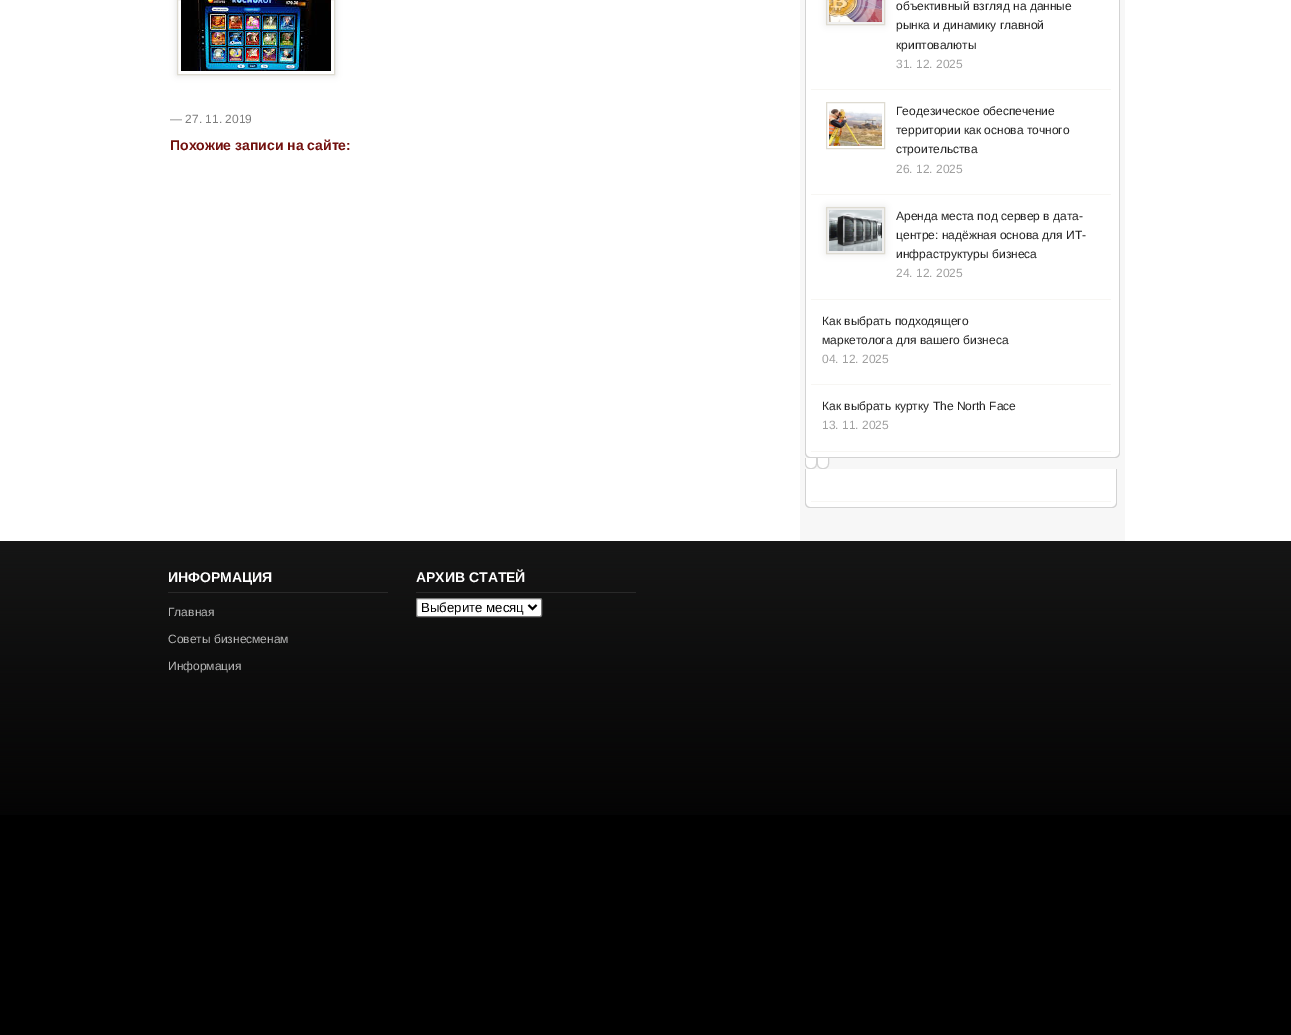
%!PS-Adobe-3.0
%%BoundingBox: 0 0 1291 1035
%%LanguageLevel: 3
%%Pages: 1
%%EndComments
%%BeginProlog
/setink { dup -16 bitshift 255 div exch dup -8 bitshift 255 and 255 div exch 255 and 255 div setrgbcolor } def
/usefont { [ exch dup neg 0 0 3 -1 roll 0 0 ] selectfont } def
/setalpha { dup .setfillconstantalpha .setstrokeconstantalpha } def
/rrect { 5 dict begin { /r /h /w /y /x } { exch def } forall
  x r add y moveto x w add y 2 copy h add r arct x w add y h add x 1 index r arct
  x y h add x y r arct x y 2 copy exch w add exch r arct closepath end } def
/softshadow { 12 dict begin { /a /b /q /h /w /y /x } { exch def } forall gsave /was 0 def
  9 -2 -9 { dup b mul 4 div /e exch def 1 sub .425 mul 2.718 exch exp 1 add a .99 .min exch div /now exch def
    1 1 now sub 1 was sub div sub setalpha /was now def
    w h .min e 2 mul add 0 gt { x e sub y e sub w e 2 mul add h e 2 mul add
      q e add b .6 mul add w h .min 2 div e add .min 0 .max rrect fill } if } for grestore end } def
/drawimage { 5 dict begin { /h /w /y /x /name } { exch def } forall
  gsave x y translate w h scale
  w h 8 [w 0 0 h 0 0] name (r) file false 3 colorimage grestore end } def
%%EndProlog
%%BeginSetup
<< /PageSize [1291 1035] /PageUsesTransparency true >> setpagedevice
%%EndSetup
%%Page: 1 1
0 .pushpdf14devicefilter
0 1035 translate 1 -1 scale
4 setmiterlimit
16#FFFFFF setink
0 0 1291 1035 rectfill
16#F7F7F7 setink
800 0 325 541 rectfill
gsave
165 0 moveto 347 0 lineto 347 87 lineto 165 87 lineto closepath 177 -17 moveto 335 -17 lineto 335 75 lineto 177 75 lineto closepath eoclip newpath
16#DFDFDF setink
177 -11 158 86 0 3.5 1 softshadow
grestore
16#DEDBD1 setink
177.5 -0.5 157 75 rectstroke
(img1.raw) 181 0 150 71 drawimage
/LiberationSans-Regular 12 usefont
16#7E7E7E setink
170 123 moveto (— 27. 11. 2019) show
/LiberationSans-Bold 14 usefont
16#72100E setink
170 150 moveto (Похожие записи на сайте:) show
16#FFFFFF setink
805 -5 moveto 1120 -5 lineto 1120 453 lineto 1120 456 1118 458 1115 458 curveto 810 458 lineto 807 458 805 456 805 453 curveto closepath fill
16#D3D3D3 setink
805 -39 moveto 1120 -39 lineto 1120 453 lineto 1120 456 1118 458 1115 458 curveto 810 458 lineto 807 458 805 456 805 453 curveto closepath 806 -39 moveto 1119 -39 lineto 1119 453 lineto 1119 455 1117 457 1115 457 curveto 810 457 lineto 808 457 806 455 806 453 curveto closepath eofill
16#F7F6F3 setink
811 89 300 1 rectfill
16#EAEAEA setink
826 -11 59 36 0 3.5 1 softshadow
16#DEDBD1 setink
826.5 -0.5 58 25 rectstroke
(img2.raw) 829 0 53 22 drawimage
/LiberationSans-Regular 12 usefont
16#242424 setink
[
    [(объективный взгляд на данные) 896 10]
    [(рынка и динамику главной) 896 29]
    [(криптовалюты) 896 49]
] { aload pop moveto show } forall
16#A0A0A0 setink
896 68 moveto (31. 12. 2025) show
16#F7F6F3 setink
811 194 300 1 rectfill
16#DEDBD1 setink
826.5 102.5 58 46 rectstroke
(img3.raw) 829 109 53 37 drawimage
16#242424 setink
[
    [(Геодезическое обеспечение) 896 115]
    [(территории как основа точного) 896 134]
    [(строительства) 896 153]
] { aload pop moveto show } forall
16#A0A0A0 setink
896 173 moveto (26. 12. 2025) show
16#F7F6F3 setink
811 299 300 1 rectfill
16#EAEAEA setink
826 207 59 47 0 3.5 1 softshadow
16#DEDBD1 setink
826.5 207.5 58 46 rectstroke
(img4.raw) 829 210 53 41 drawimage
16#242424 setink
[
    [(Аренда места под сервер в дата-) 896 220]
    [(центре: надёжная основа для ИТ-) 896 239]
    [(инфраструктуры бизнеса) 896 258]
] { aload pop moveto show } forall
16#A0A0A0 setink
896 277 moveto (24. 12. 2025) show
16#F7F6F3 setink
811 384 300 1 rectfill
16#242424 setink
822 325 moveto (Как выбрать подходящего) show
822 344 moveto (маркетолога для вашего бизнеса) show
16#A0A0A0 setink
822 363 moveto (04. 12. 2025) show
16#F7F6F3 setink
811 451 300 1 rectfill
16#242424 setink
822 410 moveto (Как выбрать куртку The North Face) show
16#A0A0A0 setink
822 429 moveto (13. 11. 2025) show
16#FFFFFF setink
805 458 moveto 817 458 lineto 817 464 lineto 817 467 815 469 812 469 curveto 810 469 lineto 807 469 805 467 805 464 curveto closepath fill
16#D3D3D3 setink
805 458 moveto 817 458 lineto 817 460.5 817.5 463.5 816.5 466 curveto 814.5 471 805 470 805 464 curveto closepath 806 458 moveto 816 458 lineto 816 460.5 816.5 463.5 815.5 465.5 curveto 814 469.5 806 469 806 464 curveto closepath eofill
16#FFFFFF setink
817 458 moveto 829 458 lineto 829 464 lineto 829 467 827 469 824 469 curveto 822 469 lineto 819 469 817 467 817 464 curveto closepath fill
16#D3D3D3 setink
817 458 moveto 829 458 lineto 829 460.5 829.5 463.5 828.5 466 curveto 826.5 471 817 470 817 464 curveto closepath 818 458 moveto 828 458 lineto 828 460.5 828.5 463.5 827.5 465.5 curveto 826 469.5 818 469 818 464 curveto closepath eofill
16#FFFFFF setink
805 469 moveto 1117 469 lineto 1117 503 lineto 1117 506 1115 508 1112 508 curveto 810 508 lineto 807 508 805 506 805 503 curveto closepath fill
16#D3D3D3 setink
805 469 moveto 1117 469 lineto 1117 503 lineto 1117 506 1115 508 1112 508 curveto 810 508 lineto 807 508 805 506 805 503 curveto closepath 806 469 moveto 1116 469 lineto 1116 503 lineto 1116 505 1114 507 1112 507 curveto 810 507 lineto 808 507 806 505 806 503 curveto closepath eofill
16#F7F6F3 setink
811 501 300 1 rectfill
16#000000 setink
0 815 1291 220 rectfill
(img5.raw) 0 541 1291 274 drawimage
16#292929 setink
168 592 220 1 rectfill
/LiberationSans-Bold 14 usefont
16#FFFFFF setink
168 582 moveto (ИНФОРМАЦИЯ) show
/LiberationSans-Regular 12 usefont
16#B4B4B4 setink
[
    [(Главная) 168 616]
    [(Советы бизнесменам) 168 643]
    [(Информация) 168 670]
] { aload pop moveto show } forall
16#292929 setink
416 592 220 1 rectfill
/LiberationSans-Bold 14 usefont
16#FFFFFF setink
416 582 moveto (АРХИВ СТАТЕЙ) show
416.5 598.5 125 18 1.5 rrect gsave fill grestore
16#767676 setink
stroke
16#000000 setink
2 setlinewidth
528.5 605 moveto 532.5 609 lineto 536.5 605 lineto stroke
/LiberationSans-Regular 13.25 usefont
421 612 moveto (Выберите месяц) show
.poppdf14devicefilter showpage
%%EOF
